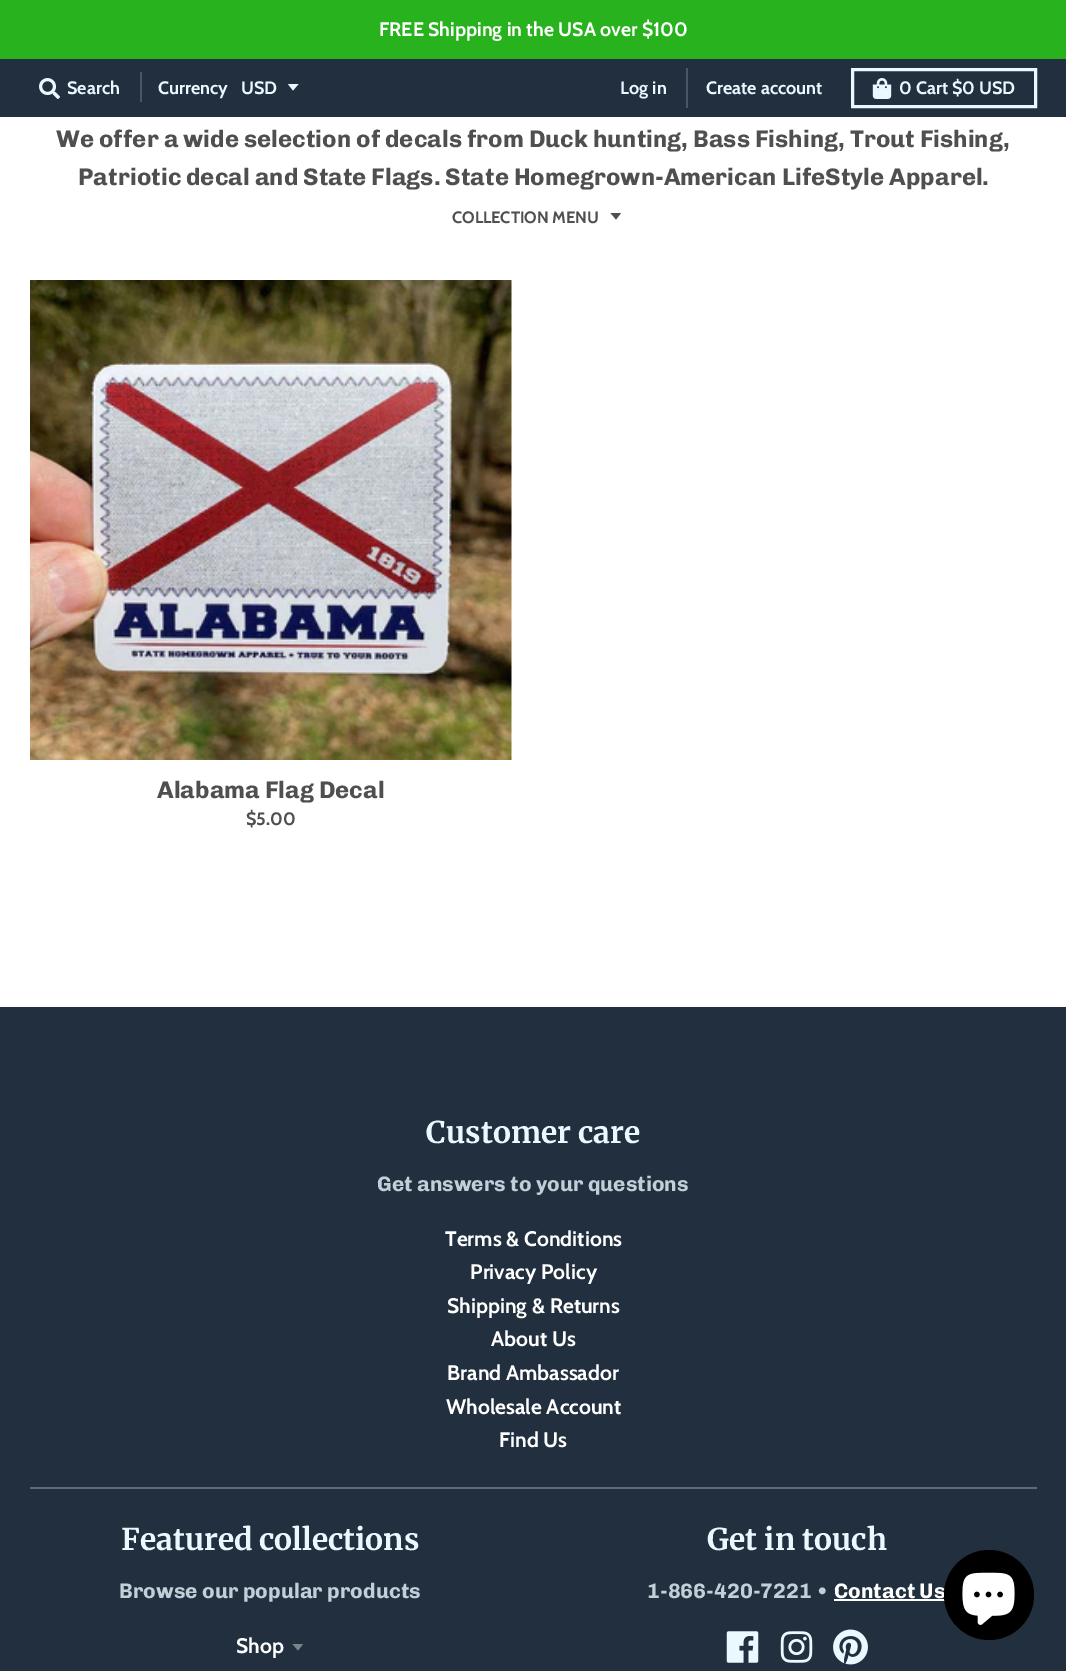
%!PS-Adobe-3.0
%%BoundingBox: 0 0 1066 1671
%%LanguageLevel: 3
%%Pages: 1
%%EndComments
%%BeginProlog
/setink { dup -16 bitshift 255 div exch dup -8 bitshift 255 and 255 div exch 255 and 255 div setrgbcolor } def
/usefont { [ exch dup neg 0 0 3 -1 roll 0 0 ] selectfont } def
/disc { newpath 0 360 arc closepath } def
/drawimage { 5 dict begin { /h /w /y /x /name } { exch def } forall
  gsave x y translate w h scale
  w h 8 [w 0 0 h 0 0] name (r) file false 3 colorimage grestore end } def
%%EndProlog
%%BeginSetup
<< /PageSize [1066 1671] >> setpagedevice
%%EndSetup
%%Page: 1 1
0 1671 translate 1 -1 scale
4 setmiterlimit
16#FFFFFF setink
0 0 1066 1671 rectfill
16#28B31E setink
0 0 1066 59 rectfill
/Cabin-Bold 19.5 usefont
16#FFFFFF setink
379 36 moveto (FREE Shipping in the USA over $100) show
16#222F3E setink
0 59 1066 58 rectfill
(img1.raw) 39 78 21 21 drawimage
/Cabin-Bold 18 usefont
16#E9F9FF setink
67 94 moveto (Search) show
16#495764 setink
140 72 2 30 rectfill
16#E9F9FF setink
158 94 moveto (Currency) show
288 84 moveto 293 90.5 lineto 298.5 84 lineto closepath fill
241 94 moveto (USD) show
16#495764 setink
686 68 2 40 rectfill
16#E9F9FF setink
620 94 moveto (Log in) show
706 94 moveto (Create account) show
3 setlinewidth
852.5 69.5 183 37 rectstroke
(img2.raw) 872 78 20 21 drawimage
899 94 moveto (0 Cart $0 USD) show
/Chivo-Bold 24 usefont
16#4F4F4F setink
56 147 moveto (We offer a wide selection of decals from Duck hunting, Bass Fishing, Trout Fishing,) show
78 185 moveto (Patriotic decal and State Flags. State Homegrown-American LifeStyle Apparel.) show
/Cabin-Bold 16.5 usefont
452 223 moveto (COLLECTION MENU) show
610.5 213 moveto 616 219.5 lineto 621 213 lineto closepath fill
(img3.raw) 30 280 482 480 drawimage
/Chivo-Bold 24 usefont
157 798 moveto (Alabama Flag Decal) show
/Cabin-Bold 18 usefont
246 825 moveto ($5.00) show
16#222F3E setink
0 1007 1066 664 rectfill
/Merriweather-Bold 30 usefont
16#E9F9FF setink
426 1143 moveto (Customer care) show
/Chivo-Bold 21 usefont
16#C1D0D8 setink
377 1191 moveto (Get answers to your questions) show
16#5D6B77 setink
30 1487 1007 2 rectfill
/Cabin-Bold 21 usefont
16#FFFFFF setink
[
    [(Terms & Conditions) 445 1246]
    [(Privacy Policy) 470 1279]
    [(Shipping & Returns) 447 1313]
    [(About Us) 491 1346]
    [(Brand Ambassador) 447 1380]
    [(Wholesale Account) 446 1414]
    [(Find Us) 499 1447]
] { aload pop moveto show } forall
/Merriweather-Bold 30 usefont
16#E9F9FF setink
121 1550 moveto -1 0 32 (Featured collections) widthshow
/Chivo-Bold 21 usefont
16#C1D0D8 setink
119 1598 moveto (Browse our popular products) show
/Cabin-Bold 21 usefont
16#FFFFFF setink
236 1653 moveto (Shop) show
16#7A828B setink
292.5 1644 moveto 298 1650.5 lineto 303 1644 lineto closepath fill
/Merriweather-Bold 30 usefont
16#E9F9FF setink
707 1550 moveto (Get in touch) show
/Chivo-Bold 21 usefont
16#C1D0D8 setink
647 1598 moveto (1-866-420-7221 •) show
16#FFFFFF setink
834 1598 moveto (Contact Us) show
834 1599 111 2 rectfill
(img4.raw) 726 1631 33 32 drawimage
(img5.raw) 780 1631 33 32 drawimage
(img6.raw) 833 1629 35 36 drawimage
16#000000 setink
989 1595 45 disc fill
(img7.raw) 962 1572 53 53 drawimage
showpage
%%EOF
